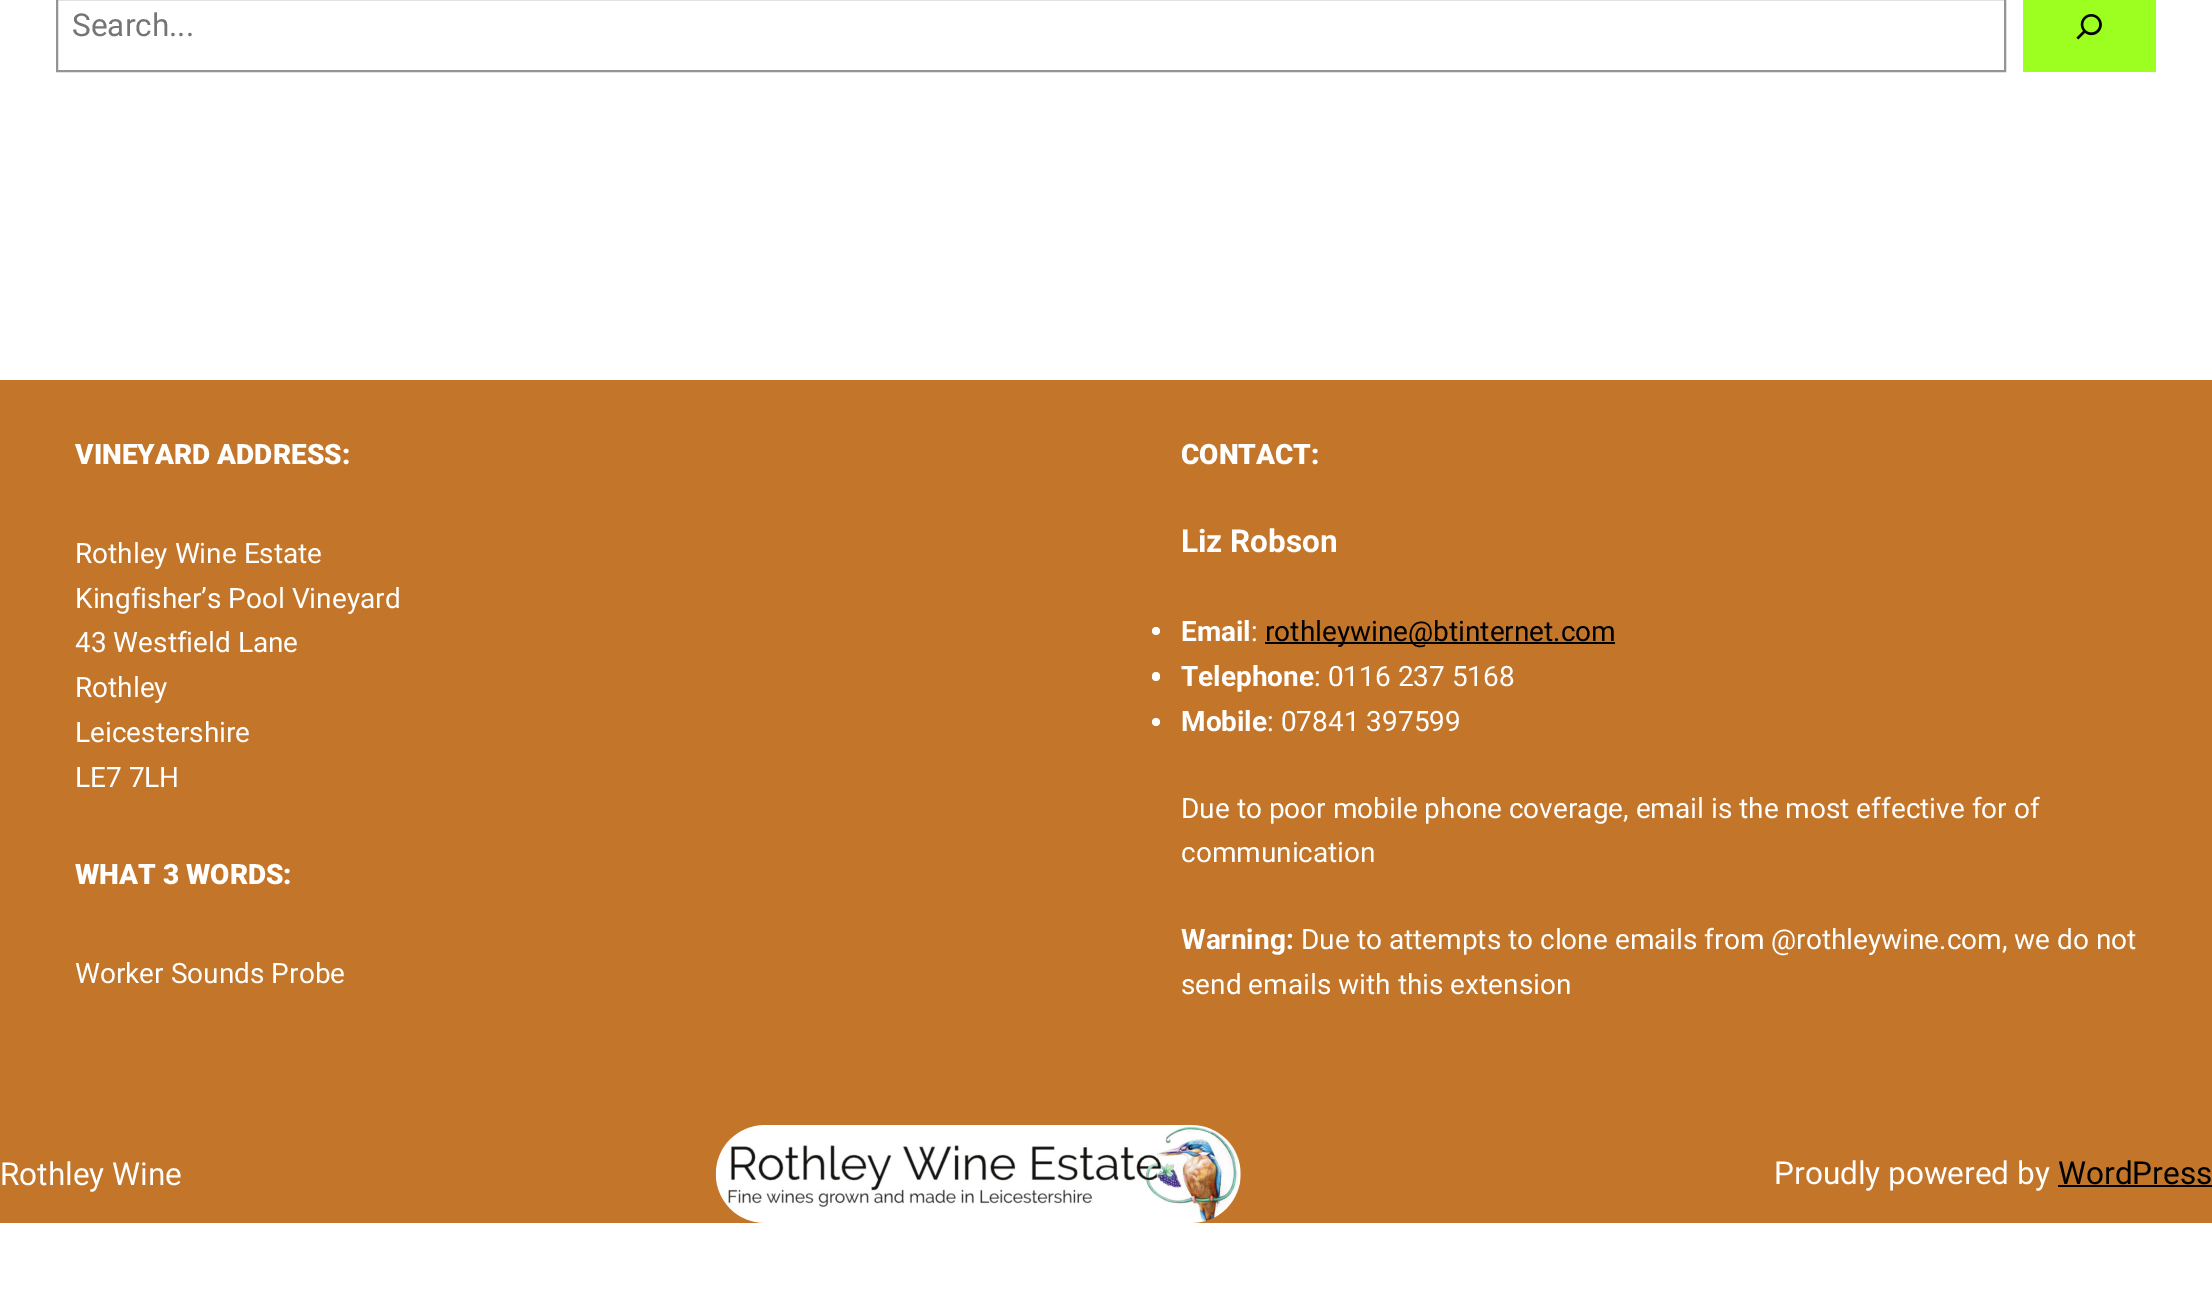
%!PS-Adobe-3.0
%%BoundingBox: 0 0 2212 1298
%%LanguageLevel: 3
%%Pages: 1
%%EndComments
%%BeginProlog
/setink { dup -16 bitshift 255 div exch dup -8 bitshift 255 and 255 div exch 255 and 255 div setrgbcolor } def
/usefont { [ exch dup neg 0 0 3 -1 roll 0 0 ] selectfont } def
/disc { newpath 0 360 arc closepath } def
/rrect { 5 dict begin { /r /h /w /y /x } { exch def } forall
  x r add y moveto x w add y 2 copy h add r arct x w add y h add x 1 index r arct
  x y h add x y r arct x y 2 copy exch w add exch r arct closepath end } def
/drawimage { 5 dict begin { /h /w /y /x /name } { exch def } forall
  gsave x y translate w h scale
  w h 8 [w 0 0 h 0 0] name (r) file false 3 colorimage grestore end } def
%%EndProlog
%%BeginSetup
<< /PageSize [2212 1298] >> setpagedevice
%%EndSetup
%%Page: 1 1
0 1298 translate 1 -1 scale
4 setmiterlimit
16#FFFFFF setink
0 0 2212 1298 rectfill
16#949494 setink
2 setlinewidth
57 -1 1948 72 rectstroke
/Roboto-Regular 31.5 usefont
16#757575 setink
72 36 moveto (Search...) show
16#9DFF20 setink
2023 0 133 72 rectfill
(img1.raw) 2076 14 26 26 drawimage
16#C3762A setink
0 380 2212 843 rectfill
/Roboto-Black 28 usefont
16#FFFFFF setink
75 464 moveto (VINEYARD ADDRESS:) show
/Roboto-Regular 28 usefont
[
    [(Rothley Wine Estate) 75 563]
    [(Kingfisher’s Pool Vineyard) 75 608]
    [(43 Westfield Lane) 75 652]
    [(Rothley) 75 697]
    [(Leicestershire) 75 742]
    [(LE7 7LH) 75 787]
] { aload pop moveto show } forall
/Roboto-Black 28 usefont
75 884 moveto (WHAT 3 WORDS:) show
/Roboto-Regular 28 usefont
75 983 moveto (Worker Sounds Probe) show
/Roboto-Black 28 usefont
1181 464 moveto (CONTACT:) show
/Roboto-Bold 31.5 usefont
1181 552 moveto (Liz Robson) show
1156 631 4 disc fill
/Roboto-Bold 28 usefont
1181 641 moveto (Email) show
/Roboto-Regular 28 usefont
1251 641 moveto (:) show
16#000000 setink
1265 642 350 2 rectfill
1265 641 moveto (rothleywine@btinternet.com) show
16#FFFFFF setink
1152 672 8 9 4 rrect fill
/Roboto-Bold 28 usefont
1181 686 moveto (Telephone) show
/Roboto-Regular 28 usefont
1314 686 moveto (: 0116 237 5168) show
1156 722 4 disc fill
/Roboto-Bold 28 usefont
1181 731 moveto (Mobile) show
/Roboto-Regular 28 usefont
[
    [(: 07841 397599) 1267 731]
    [(Due to poor mobile phone coverage, email is the most effective for of) 1181 818]
    [(communication) 1181 862]
] { aload pop moveto show } forall
/Roboto-Bold 28 usefont
1181 949 moveto (Warning:) show
/Roboto-Regular 28 usefont
1301 949 moveto (Due to attempts to clone emails from @rothleywine.com, we do not) show
1181 994 moveto (send emails with this extension) show
/Roboto-Regular 31.5 usefont
0 1185 moveto (Rothley Wine) show
(img2.raw) 715 1125 526 98 drawimage
1774 1184 moveto (Proudly powered by) show
16#000000 setink
2058 1184 moveto (WordPress) show
2058 1185 154 2 rectfill
showpage
%%EOF
